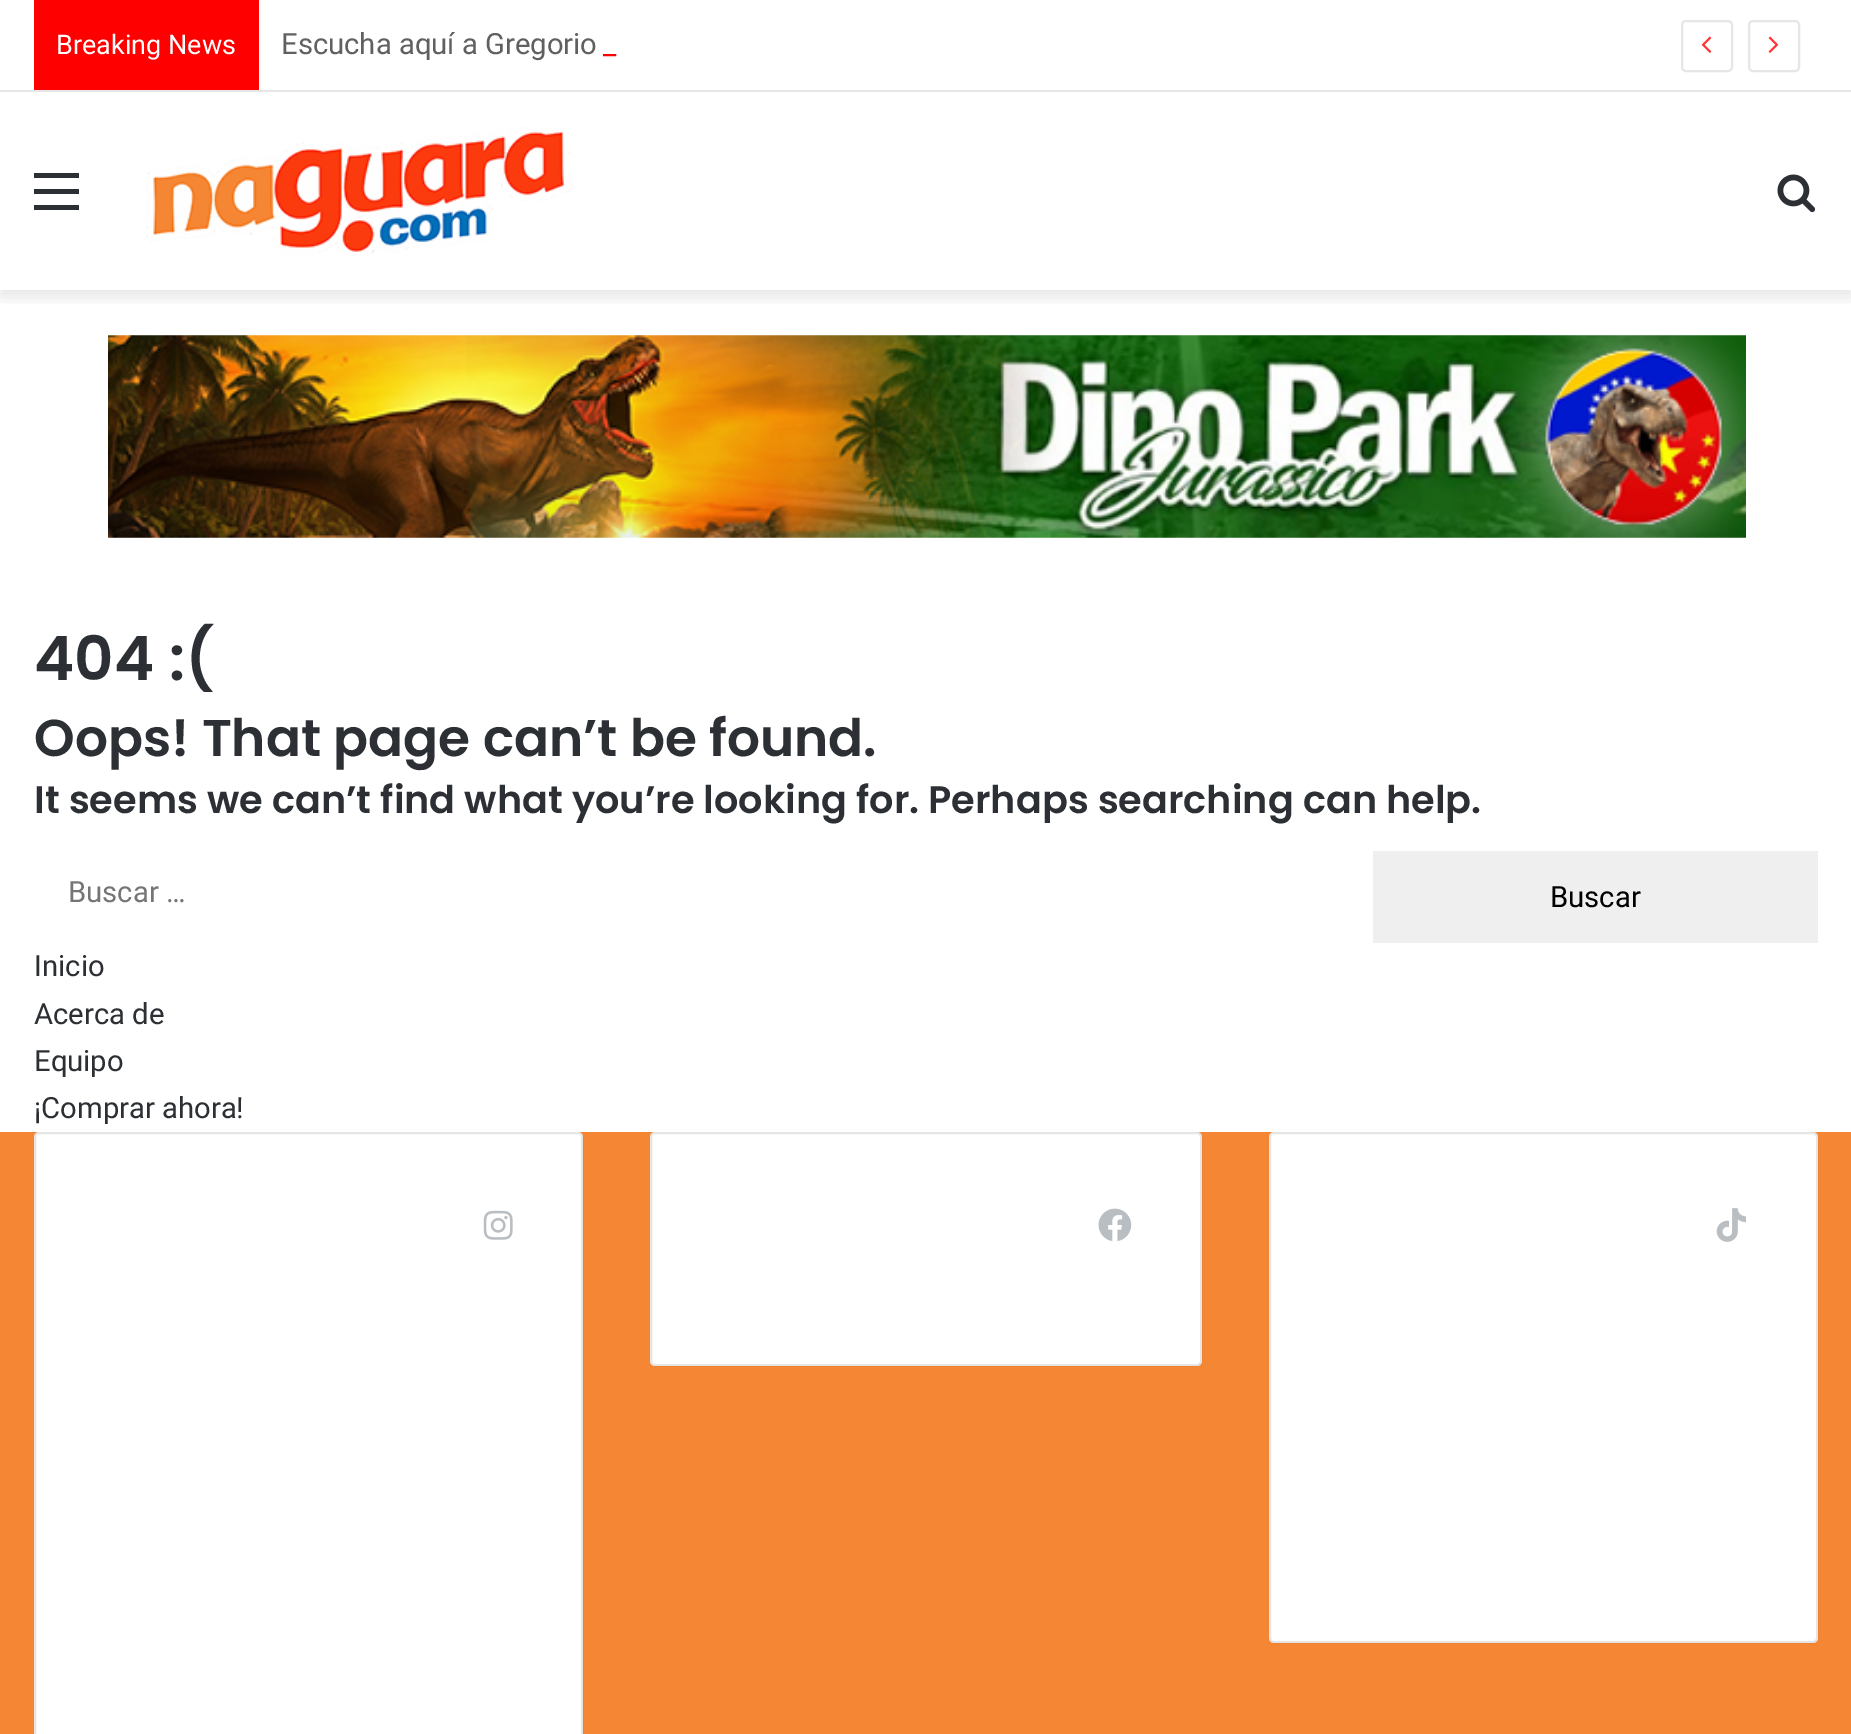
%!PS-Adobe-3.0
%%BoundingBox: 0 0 1851 1734
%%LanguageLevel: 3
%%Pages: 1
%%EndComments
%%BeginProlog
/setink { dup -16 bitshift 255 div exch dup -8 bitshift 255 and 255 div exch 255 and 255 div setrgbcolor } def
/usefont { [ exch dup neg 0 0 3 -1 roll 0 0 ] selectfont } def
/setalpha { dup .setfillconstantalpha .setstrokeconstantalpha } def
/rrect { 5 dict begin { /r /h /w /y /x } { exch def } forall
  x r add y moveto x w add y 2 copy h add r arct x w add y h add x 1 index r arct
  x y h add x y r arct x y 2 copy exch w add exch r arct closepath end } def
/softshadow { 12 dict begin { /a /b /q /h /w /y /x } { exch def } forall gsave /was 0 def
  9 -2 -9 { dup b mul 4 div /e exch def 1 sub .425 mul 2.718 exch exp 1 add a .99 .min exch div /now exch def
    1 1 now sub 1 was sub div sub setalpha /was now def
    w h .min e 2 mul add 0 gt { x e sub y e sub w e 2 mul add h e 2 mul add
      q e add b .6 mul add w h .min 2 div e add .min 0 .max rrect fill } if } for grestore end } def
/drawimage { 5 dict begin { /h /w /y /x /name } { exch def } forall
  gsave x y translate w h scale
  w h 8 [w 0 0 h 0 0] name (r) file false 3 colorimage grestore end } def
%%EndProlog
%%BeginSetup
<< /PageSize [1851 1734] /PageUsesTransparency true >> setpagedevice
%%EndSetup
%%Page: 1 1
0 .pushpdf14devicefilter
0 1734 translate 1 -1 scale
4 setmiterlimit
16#FFFFFF setink
0 0 1851 1734 rectfill
gsave
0 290 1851 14 rectclip
16#000000 setink
0 99 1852 198 0 8 0.1 softshadow
grestore
[
    [8 89 1836 1 16#FFFFFF]
    [0 90 1851 2 16#E6E6E6]
    [34 0 225 90 16#FF0000]
] { aload pop setink rectfill } forall
/Roboto-Regular 27 usefont
16#FFFFFF setink
56 54 moveto (Breaking News) show
/Roboto-Regular 29.25 usefont
16#606060 setink
281 54 moveto (Escucha aquí a Gregorio) show
16#FF0000 setink
603 54 moveto (_) show
16#E6E6E6 setink
2 setlinewidth
1682 21 50 50 4 rrect stroke
(img1.raw) 1701 36 11 17 drawimage
1749 21 50 50 4 rrect stroke
(img2.raw) 1768 36 11 17 drawimage
[
    [34 189 45 5 16#2C2F34]
    [34 173 45 5 16#2C2F34]
    [34 205 45 5 16#2C2F34]
] { aload pop setink rectfill } forall
(img3.raw) 146 127 428 130 drawimage
(img4.raw) 1777 174 39 39 drawimage
(img5.raw) 108 335 1638 203 drawimage
/Poppins-SemiBold 61 usefont
34 680 moveto (404 :\() show
/Poppins-SemiBold 51.75 usefont
34 756 moveto (Oops! That page can’t be found.) show
/Poppins-SemiBold 38.25 usefont
34 813 moveto (It seems we can’t find what you’re looking for. Perhaps searching can help.) show
/Roboto-Regular 29.25 usefont
16#757575 setink
68 902 moveto (Buscar …) show
16#EFEFEF setink
1373 851 445 92 rectfill
16#000000 setink
1550 907 moveto (Buscar) show
16#2C2F34 setink
[
    [(Inicio) 34 976]
    [(Acerca de) 34 1024]
    [(Equipo) 34 1071]
    [(¡Comprar ahora!) 34 1118]
] { aload pop moveto show } forall
16#F58634 setink
0 1132 1851 602 rectfill
16#FFFFFF setink
34 1132 549 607 5 rrect fill
0.1 setalpha
16#000000 setink
35 1133 547 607 4 rrect stroke
1 setalpha
(img6.raw) 483 1210 30 30 drawimage
16#FFFFFF setink
650 1132 552 234 5 rrect fill
0.1 setalpha
16#000000 setink
651 1133 550 232 4 rrect stroke
1 setalpha
(img7.raw) 1098 1208 34 33 drawimage
16#FFFFFF setink
1269 1132 549 511 5 rrect fill
0.1 setalpha
16#000000 setink
1270 1133 547 509 4 rrect stroke
1 setalpha
(img8.raw) 1716 1208 30 34 drawimage
.poppdf14devicefilter showpage
%%EOF
